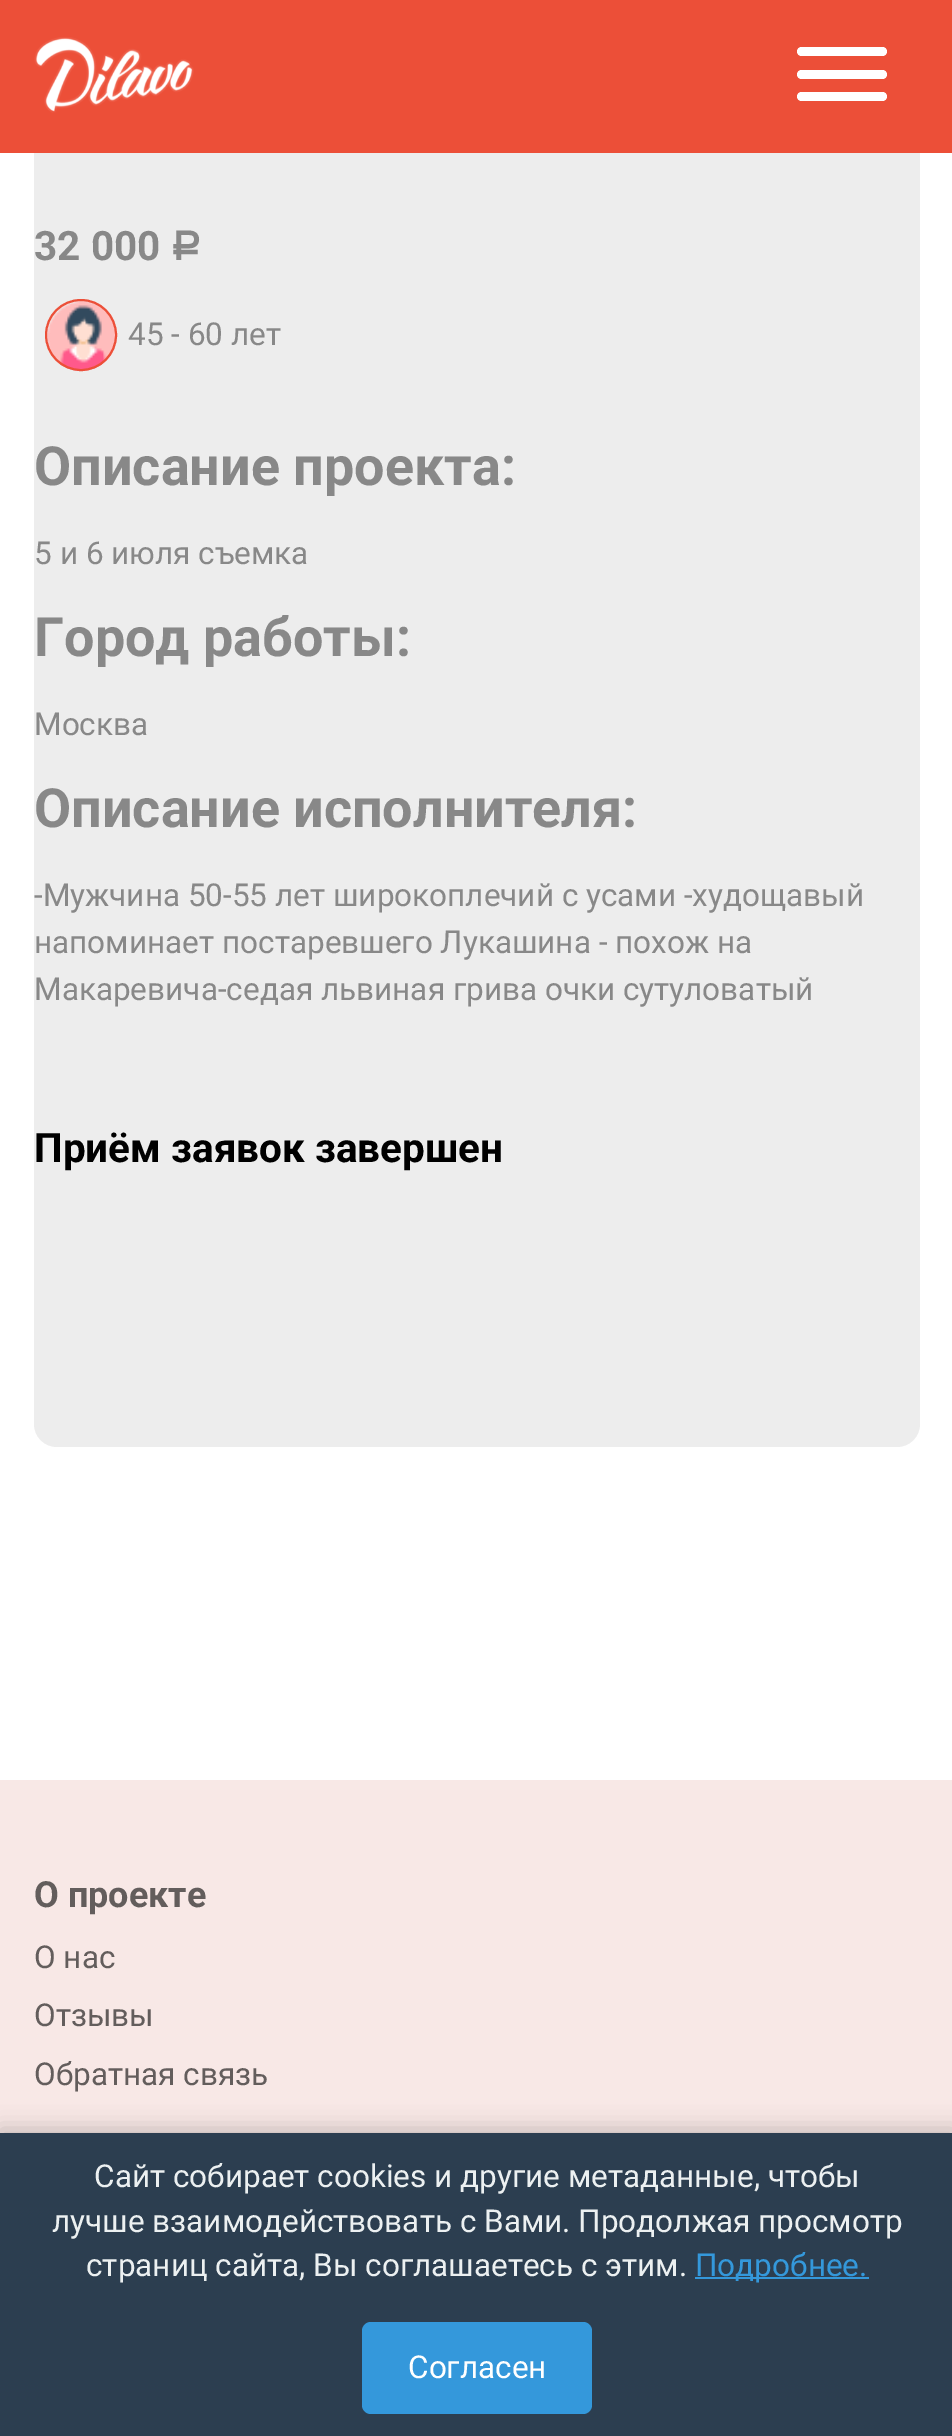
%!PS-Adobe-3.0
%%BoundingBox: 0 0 952 2436
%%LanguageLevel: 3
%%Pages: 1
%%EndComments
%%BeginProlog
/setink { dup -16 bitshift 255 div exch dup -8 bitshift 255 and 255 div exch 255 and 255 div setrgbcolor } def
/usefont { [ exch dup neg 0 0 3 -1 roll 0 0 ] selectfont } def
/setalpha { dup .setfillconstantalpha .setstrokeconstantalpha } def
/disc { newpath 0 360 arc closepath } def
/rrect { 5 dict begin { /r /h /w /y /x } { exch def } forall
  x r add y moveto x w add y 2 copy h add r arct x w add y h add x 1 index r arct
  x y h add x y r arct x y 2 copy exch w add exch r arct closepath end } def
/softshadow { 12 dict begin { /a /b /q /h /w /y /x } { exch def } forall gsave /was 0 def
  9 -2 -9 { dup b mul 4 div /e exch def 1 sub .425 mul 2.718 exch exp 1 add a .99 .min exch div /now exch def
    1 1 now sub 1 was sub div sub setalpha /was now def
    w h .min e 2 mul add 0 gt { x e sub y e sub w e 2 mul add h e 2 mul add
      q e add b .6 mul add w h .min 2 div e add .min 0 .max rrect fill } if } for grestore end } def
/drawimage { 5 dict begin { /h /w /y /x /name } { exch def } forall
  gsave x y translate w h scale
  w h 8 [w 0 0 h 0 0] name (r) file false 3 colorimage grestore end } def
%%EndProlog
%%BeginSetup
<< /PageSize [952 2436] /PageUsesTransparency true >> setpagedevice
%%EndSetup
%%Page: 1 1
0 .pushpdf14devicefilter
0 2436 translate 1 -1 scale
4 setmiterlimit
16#FFFFFF setink
0 0 952 2436 rectfill
16#EDEDED setink
34 27 886 1420 23 rrect fill
16#EC4F38 setink
0 0 952 153 rectfill
(img1.raw) 34 37 160 76 drawimage
16#FFFFFF setink
797 70 90 9 4.5 rrect fill
797 47 90 9 4.5 rrect fill
797 92 90 9 4.5 rrect fill
/Roboto-Bold 40.5 usefont
16#888888 setink
34 260 moveto (32 000) show
/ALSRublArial-Bold 40.5 usefont
170 260 moveto (Р) show
(img2.raw) 46 301 71 70 drawimage
16#EC4F38 setink
2 setlinewidth
81 335 35 disc stroke
/Roboto-Regular 31.5 usefont
16#888888 setink
128 345 moveto (45 - 60 лет) show
/Roboto-Bold 54 usefont
34 485 moveto (Описание проекта:) show
/Roboto-Regular 31.5 usefont
34 564 moveto (5 и 6 июля съемка) show
/Roboto-Bold 54 usefont
34 656 moveto (Город работы:) show
/Roboto-Regular 31.5 usefont
34 735 moveto (Москва) show
/Roboto-Bold 54 usefont
34 827 moveto (Описание исполнителя:) show
/Roboto-Regular 31.5 usefont
[
    [(-Мужчина 50-55 лет широкоплечий с усами -худощавый) 34 906]
    [(напоминает постаревшего Лукашина - похож на) 34 953]
    [(Макаревича-седая львиная грива очки сутуловатый) 34 1000]
] { aload pop moveto show } forall
/Roboto-Bold 40.5 usefont
16#000000 setink
34 1162 moveto (Приём заявок завершен) show
16#F8E8E6 setink
0 1780 952 353 rectfill
/Roboto-Bold 36 usefont
16#635D5C setink
34 1907 moveto (О проекте) show
/Roboto-Regular 31.5 usefont
[
    [(О нас) 34 1968]
    [(Отзывы) 34 2026]
    [(Обратная связь) 34 2085]
] { aload pop moveto show } forall
16#000000 setink
0 2129 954 303 0 11 0.2 softshadow
16#2C3E50 setink
0 2133 952 303 rectfill
16#ECF0F1 setink
[
    [(Сайт собирает cookies и другие метаданные, чтобы) 94 2187]
    [(лучше взаимодействовать с Вами. Продолжая просмотр) 52 2232]
    [(страниц сайта, Вы соглашаетесь с этим.) 86 2276]
] { aload pop moveto show } forall
16#3498DB setink
695 2277 174 2 rectfill
695 2276 moveto (Подробнее.) show
362 2322 230 92 9 rrect fill
16#FFFFFF setink
408 2378 moveto (Согласен) show
.poppdf14devicefilter showpage
%%EOF
